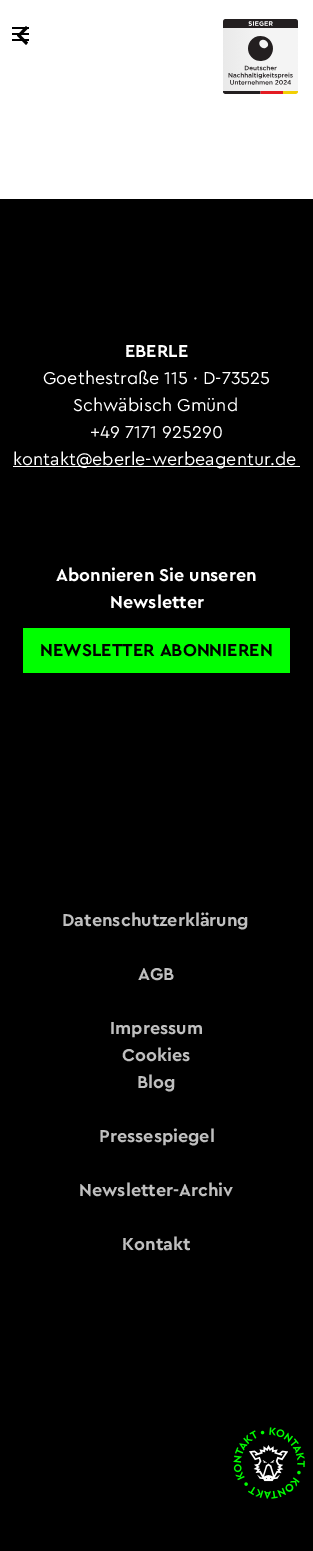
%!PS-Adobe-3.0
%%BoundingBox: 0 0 313 1551
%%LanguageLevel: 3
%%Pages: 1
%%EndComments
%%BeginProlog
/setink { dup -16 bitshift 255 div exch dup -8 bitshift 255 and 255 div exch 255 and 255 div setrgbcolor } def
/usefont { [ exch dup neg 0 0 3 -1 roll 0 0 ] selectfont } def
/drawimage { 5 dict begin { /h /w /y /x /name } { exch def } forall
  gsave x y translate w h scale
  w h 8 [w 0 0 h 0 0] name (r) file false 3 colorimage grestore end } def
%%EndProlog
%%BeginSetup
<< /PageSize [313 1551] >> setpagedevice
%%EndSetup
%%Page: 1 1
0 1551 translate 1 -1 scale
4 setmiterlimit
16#FFFFFF setink
0 0 313 1551 rectfill
(img1.raw) 12 27 17 14 drawimage
(img2.raw) 223 19 75 75 drawimage
16#000000 setink
28 28.5 moveto 21 35.5 lineto 28 42.5 lineto 26 45 lineto 17 35.5 lineto 26 26 lineto closepath fill
0 199 313 1352 rectfill
/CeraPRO-Bold 18 usefont
16#FFFFFF setink
125 357 moveto (EBERLE) show
/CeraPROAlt-Regular 18 usefont
43 384 moveto (Goethestraße 115 · D-73525) show
/CeraPRO-Regular 18 usefont
73 411 moveto (Schwäbisch Gmünd) show
90 438 moveto (+49 7171 925290) show
13 466 287 1 rectfill
13 465 moveto (kontakt@eberle-werbeagentur.de) show
/CeraPRO-Bold 18 usefont
56 581 moveto (Abonnieren Sie unseren) show
110 608 moveto (Newsletter) show
16#00FF00 setink
23 628 267 45 rectfill
16#000000 setink
40 656 moveto (NEWSLETTER ABONNIEREN) show
16#BFBFBF setink
[
    [(Datenschutzerklärung) 62 926]
    [(AGB) 138 980]
    [(Impressum) 110 1034]
    [(Cookies) 122 1061]
    [(Blog) 137 1088]
    [(Pressespiegel) 99 1142]
    [(Newsletter-Archiv) 79 1196]
    [(Kontakt) 122 1250]
] { aload pop moveto show } forall
(img3.raw) 233 1427 72 72 drawimage
(img4.raw) 249 1445 39 37 drawimage
showpage
%%EOF
